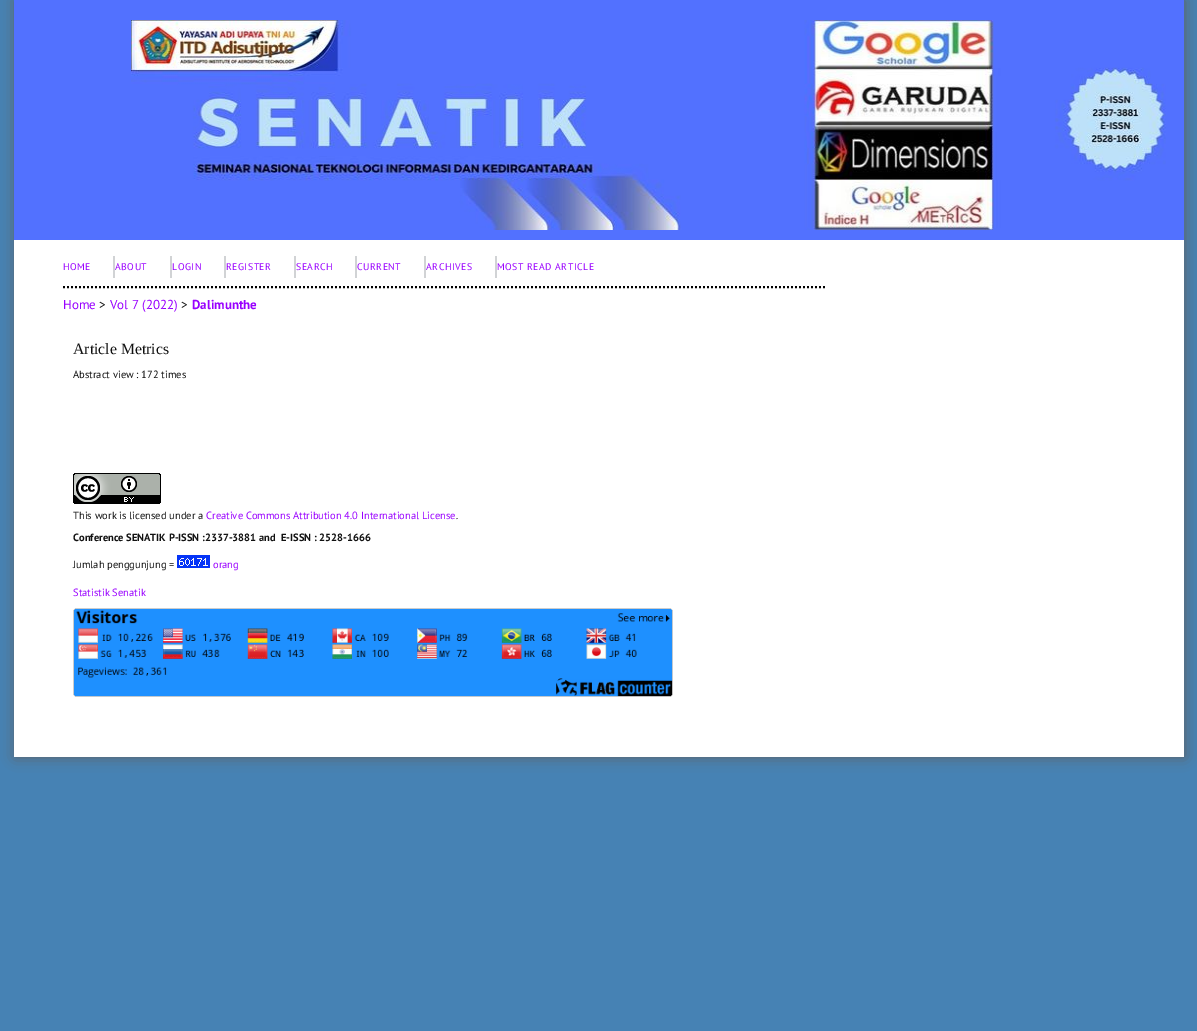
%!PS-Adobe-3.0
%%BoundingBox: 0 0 1197 1031
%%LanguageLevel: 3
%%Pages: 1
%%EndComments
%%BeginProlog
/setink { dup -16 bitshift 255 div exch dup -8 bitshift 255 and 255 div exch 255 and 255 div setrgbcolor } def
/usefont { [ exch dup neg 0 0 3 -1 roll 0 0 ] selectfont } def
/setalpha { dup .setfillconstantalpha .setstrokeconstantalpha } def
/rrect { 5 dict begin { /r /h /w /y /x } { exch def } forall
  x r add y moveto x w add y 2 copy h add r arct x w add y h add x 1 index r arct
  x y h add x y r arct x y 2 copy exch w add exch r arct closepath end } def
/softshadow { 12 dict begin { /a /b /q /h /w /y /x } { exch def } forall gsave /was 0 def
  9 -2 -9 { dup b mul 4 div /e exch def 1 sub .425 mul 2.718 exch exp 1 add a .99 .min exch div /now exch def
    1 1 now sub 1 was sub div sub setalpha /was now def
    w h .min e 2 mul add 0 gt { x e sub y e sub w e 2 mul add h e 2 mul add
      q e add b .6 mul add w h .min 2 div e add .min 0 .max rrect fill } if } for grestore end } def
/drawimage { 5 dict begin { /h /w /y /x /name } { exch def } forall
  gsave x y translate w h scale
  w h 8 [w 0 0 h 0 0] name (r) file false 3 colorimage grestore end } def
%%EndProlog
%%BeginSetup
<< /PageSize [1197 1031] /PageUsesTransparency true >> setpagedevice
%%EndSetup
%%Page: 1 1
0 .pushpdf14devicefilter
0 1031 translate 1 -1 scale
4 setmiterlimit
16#4682B4 setink
0 0 1197 1031 rectfill
16#606060 setink
15 0 1170 757 0 7 1 softshadow
16#FFFFFF setink
14 240 1170 517 rectfill
16#5271FF setink
14 0 1170 240 rectfill
(img1.raw) 131 20 1035 210 drawimage
16#000000 setink
2 setlinewidth
[2 2] 0 setdash
63 287 moveto 826 287 lineto stroke
16#D1D3D5 setink
113 256 2 22 rectfill
/PTSans-Regular 9.75 usefont
16#9900FF setink
63 270 moveto 0.5 0 (HOME) ashow
16#D1D3D5 setink
170 256 2 22 rectfill
16#9900FF setink
115 270 moveto 0.5 0 (ABOUT) ashow
16#D1D3D5 setink
224 256 2 22 rectfill
16#9900FF setink
172 270 moveto 0.5 0 (LOGIN) ashow
16#D1D3D5 setink
294 256 2 22 rectfill
16#9900FF setink
226 270 moveto 0.5 0 (REGISTER) ashow
16#D1D3D5 setink
355 256 2 22 rectfill
16#9900FF setink
296 270 moveto 0.5 0 (SEARCH) ashow
16#D1D3D5 setink
424 256 2 22 rectfill
16#9900FF setink
357 270 moveto 0.5 0 (CURRENT) ashow
16#D1D3D5 setink
495 256 2 22 rectfill
16#9900FF setink
426 270 moveto 0.5 0 (ARCHIVES) ashow
497 270 moveto 0.5 0 (MOST READ ARTICLE) ashow
/PTSans-Regular 13 usefont
63 309 moveto (Home) show
16#111111 setink
99 309 moveto (>) show
16#9900FF setink
110 309 moveto (Vol 7 \(2022\)) show
16#111111 setink
181 309 moveto (>) show
/PTSans-Bold 13 usefont
16#9900FF setink
192 309 moveto (Dalimunthe) show
/LiberationSerif-Regular 15.75 usefont
16#111111 setink
73 354 moveto (Article Metrics) show
/PTSans-Regular 10.5 usefont
73 378 moveto (Abstract view : 172 times) show
(img2.raw) 73 473 88 31 drawimage
73 519 moveto (This work is licensed under a) show
16#9900FF setink
206 519 moveto (Creative Commons Attribution 4.0 International License) show
16#111111 setink
456 519 moveto (.) show
/PTSans-Bold 10.5 usefont
73 541 moveto (Conference SENATIK P-ISSN :2337-3881 and  E-ISSN : 2528-1666) show
/PTSans-Regular 10.5 usefont
73 568 moveto (Jumlah penggunjung =) show
(img3.raw) 177 555 33 13 drawimage
16#9900FF setink
213 568 moveto (orang) show
73 596 moveto (Statistik Senatik) show
(img4.raw) 73 608 600 89 drawimage
.poppdf14devicefilter showpage
%%EOF
